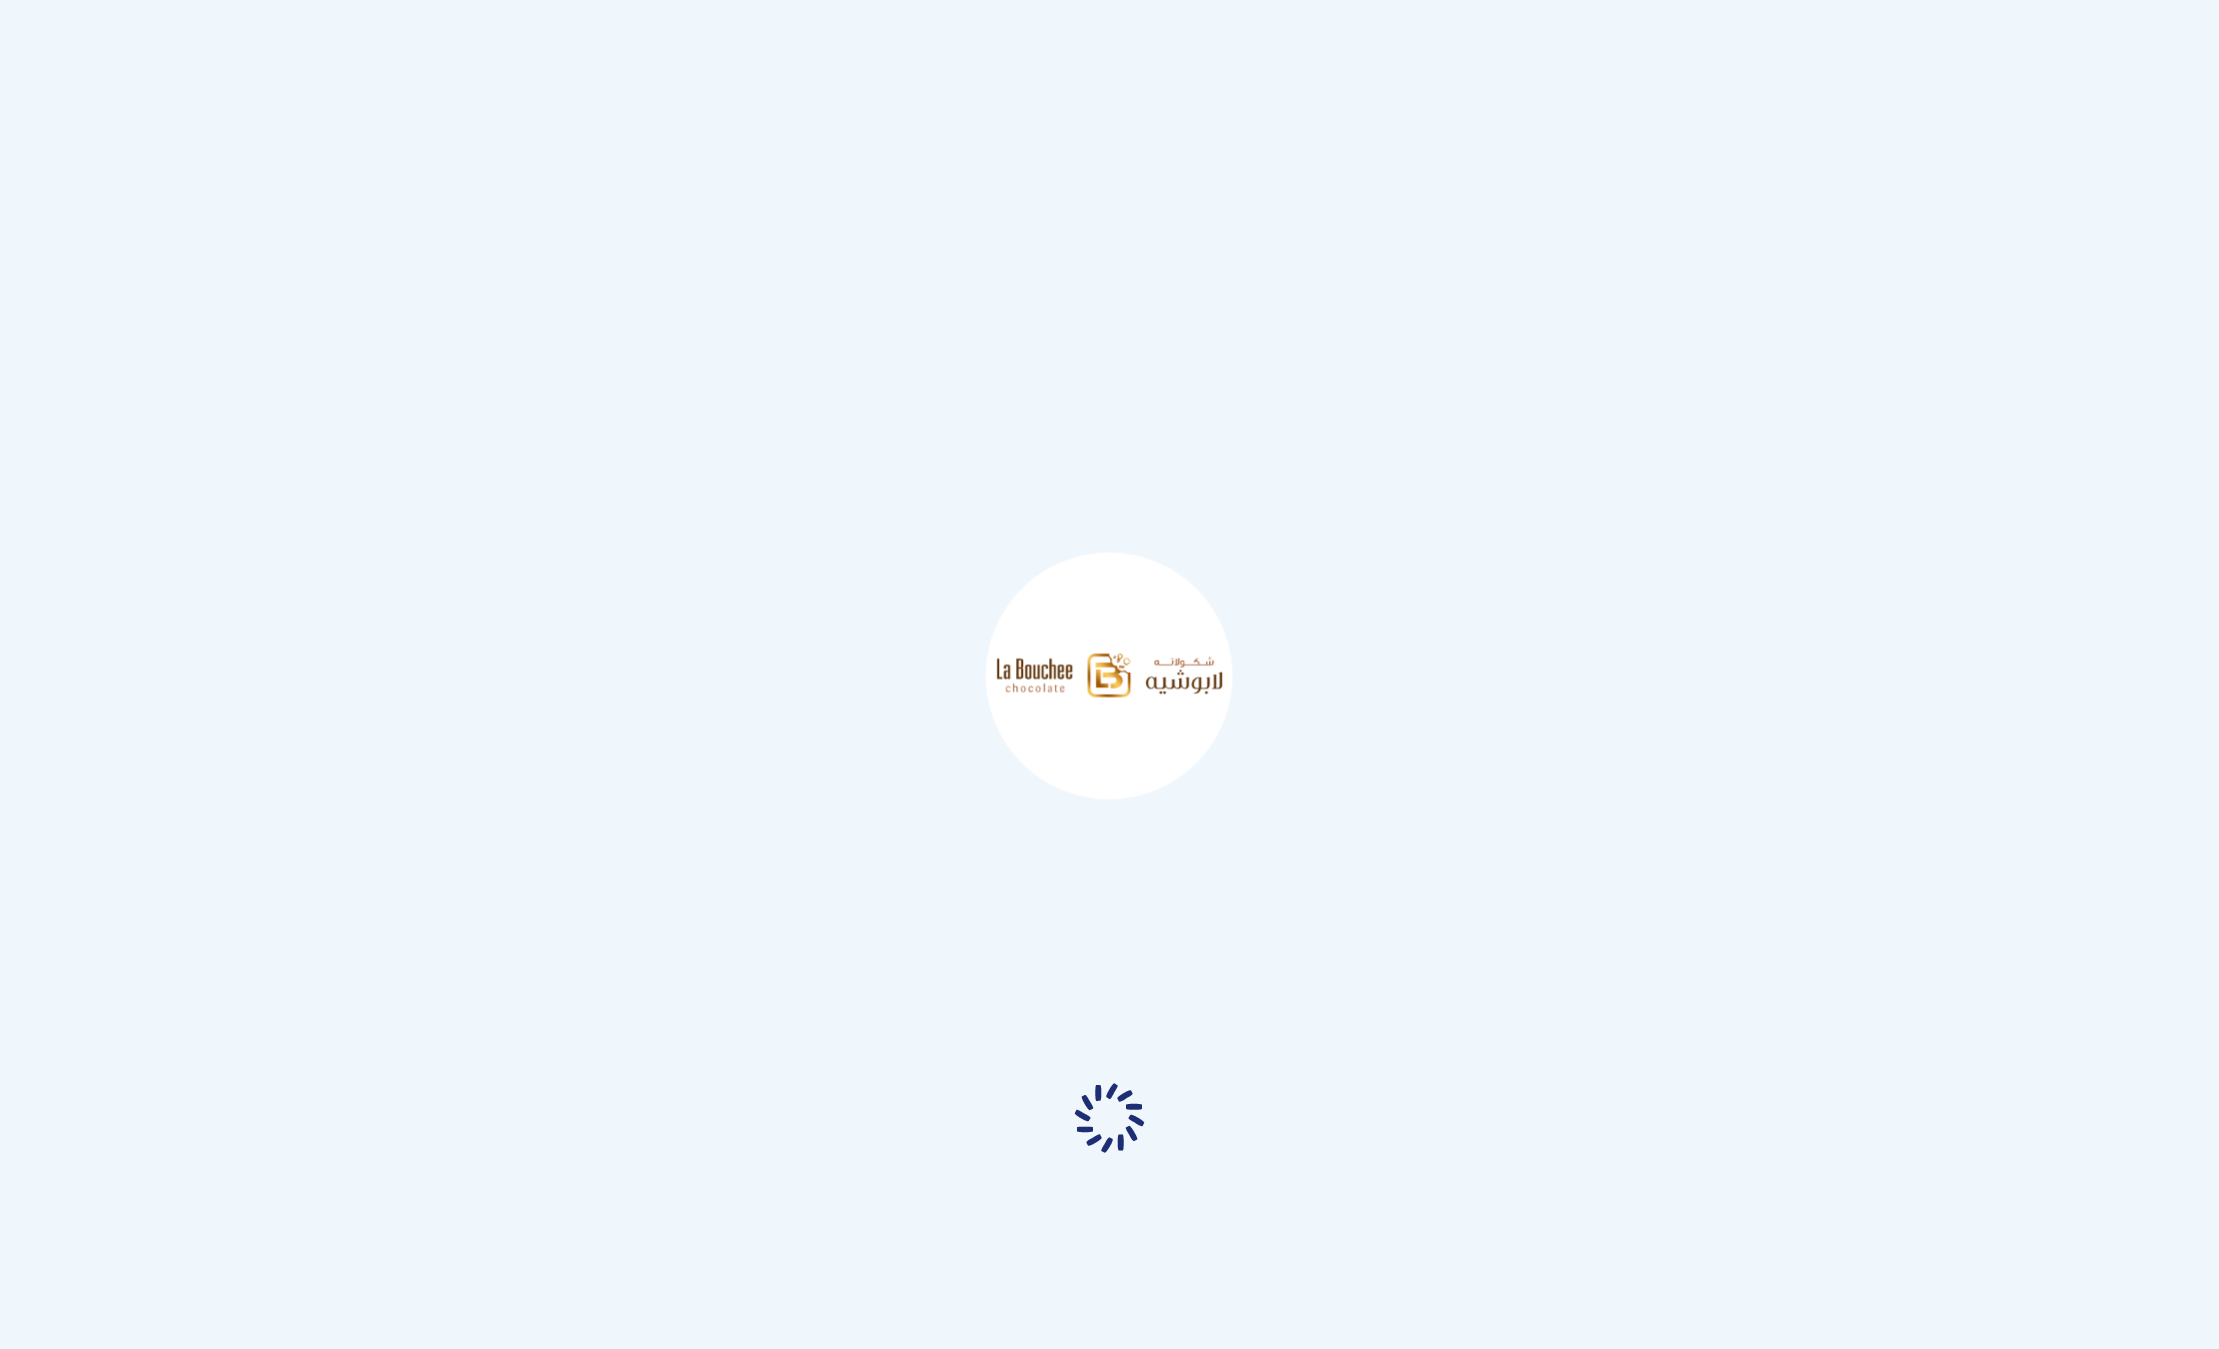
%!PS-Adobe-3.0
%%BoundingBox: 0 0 2219 1349
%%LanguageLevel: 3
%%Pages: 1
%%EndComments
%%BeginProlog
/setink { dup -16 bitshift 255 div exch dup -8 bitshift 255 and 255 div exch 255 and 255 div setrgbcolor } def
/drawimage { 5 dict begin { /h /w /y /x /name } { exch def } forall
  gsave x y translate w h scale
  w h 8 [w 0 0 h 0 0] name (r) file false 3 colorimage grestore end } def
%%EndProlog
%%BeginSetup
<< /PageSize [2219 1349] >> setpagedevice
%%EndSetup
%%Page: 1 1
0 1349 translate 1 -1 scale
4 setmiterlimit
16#EFF6FC setink
0 0 2219 1349 rectfill
(img1.raw) 985 552 248 248 drawimage
16#1D2E73 setink
1096.5 1085 moveto 1100 1085 lineto 1101.5 1086 1101 1092 1101 1093 curveto 1101 1094 1101.5 1100 1100 1100.5 curveto 1096.5 1101 lineto 1095 1100.5 1095 1085 1096.5 1085 curveto closepath 1114.5 1083.5 moveto 1117.5 1085.5 lineto 1118 1086.5 1114.5 1091.5 1114 1092.5 curveto 1113.5 1093.5 1111 1099 1109.5 1099 curveto 1106.5 1097 lineto 1105 1096.5 1113 1082.5 1114.5 1083.5 curveto closepath fill
1131 1090.5 moveto 1132.5 1093.5 lineto 1132.5 1095 1127.5 1097.5 1126.5 1098 curveto 1125.5 1099 1120.5 1102 1119 1101.5 curveto 1117.5 1098.5 lineto 1116.5 1097 1130 1089 1131 1090.5 curveto closepath 1142 1105 moveto 1142 1108.5 lineto 1141 1110 1135 1109.5 1134 1109.5 curveto 1133 1109.5 1127 1110 1126 1108.5 curveto 1126 1105 lineto 1126 1103.5 1142 1103.5 1142 1105 curveto closepath 1144 1123 moveto 1142.5 1126 lineto 1141 1126.5 1136 1123.5 1135 1122.5 curveto 1134 1122 1129 1119.5 1128.5 1118 curveto 1130.5 1115 lineto 1131.5 1113.5 1145 1121.5 1144 1123 curveto closepath 1137 1139.5 moveto 1134 1141 lineto 1132.5 1141 1130 1136 1129.5 1135 curveto 1129 1134 1125.5 1129 1126 1127.5 curveto 1129 1126 lineto 1130.5 1125 1138.5 1139 1137 1139.5 curveto closepath fill
1122.5 1150.5 moveto 1119 1150.5 lineto 1117.5 1149.5 1118 1143.5 1118 1142.5 curveto 1118 1141.5 1117.5 1135.5 1119 1134.5 curveto 1122.5 1134.5 lineto 1124 1135 1124 1150.5 1122.5 1150.5 curveto closepath 1104.5 1152.5 moveto 1101.5 1151 lineto 1101 1149.5 1104.5 1144.5 1105 1143.5 curveto 1105.5 1142.5 1108 1137.5 1109.5 1137.5 curveto 1112.5 1139 lineto 1114 1140 1106 1153.5 1104.5 1152.5 curveto closepath fill
1088 1145.5 moveto 1086.5 1142.5 lineto 1086.5 1141 1091.5 1138.5 1092.5 1138 curveto 1093.5 1137.5 1098.5 1134 1100 1134.5 curveto 1101.5 1137.5 lineto 1102.5 1139 1089 1147 1088 1145.5 curveto closepath 1077 1131 moveto 1077 1127.5 lineto 1078 1126.5 1084 1127 1085 1127 curveto 1086 1127 1092 1126.5 1093 1127.5 curveto 1093 1131 lineto 1093 1132.5 1077 1132.5 1077 1131 curveto closepath 1075 1113 moveto 1076.5 1110 lineto 1078 1109.5 1083 1113 1084 1113.5 curveto 1085 1114 1090 1116.5 1090.5 1118 curveto 1088.5 1121 lineto 1087.5 1122.5 1074 1114.5 1075 1113 curveto closepath 1082 1096.5 moveto 1085 1095 lineto 1086.5 1095 1089 1100.5 1089.5 1101 curveto 1090 1102 1093.5 1107 1093 1108.5 curveto 1090 1110 lineto 1088.5 1111 1080.5 1097.5 1082 1096.5 curveto closepath fill
showpage
%%EOF
